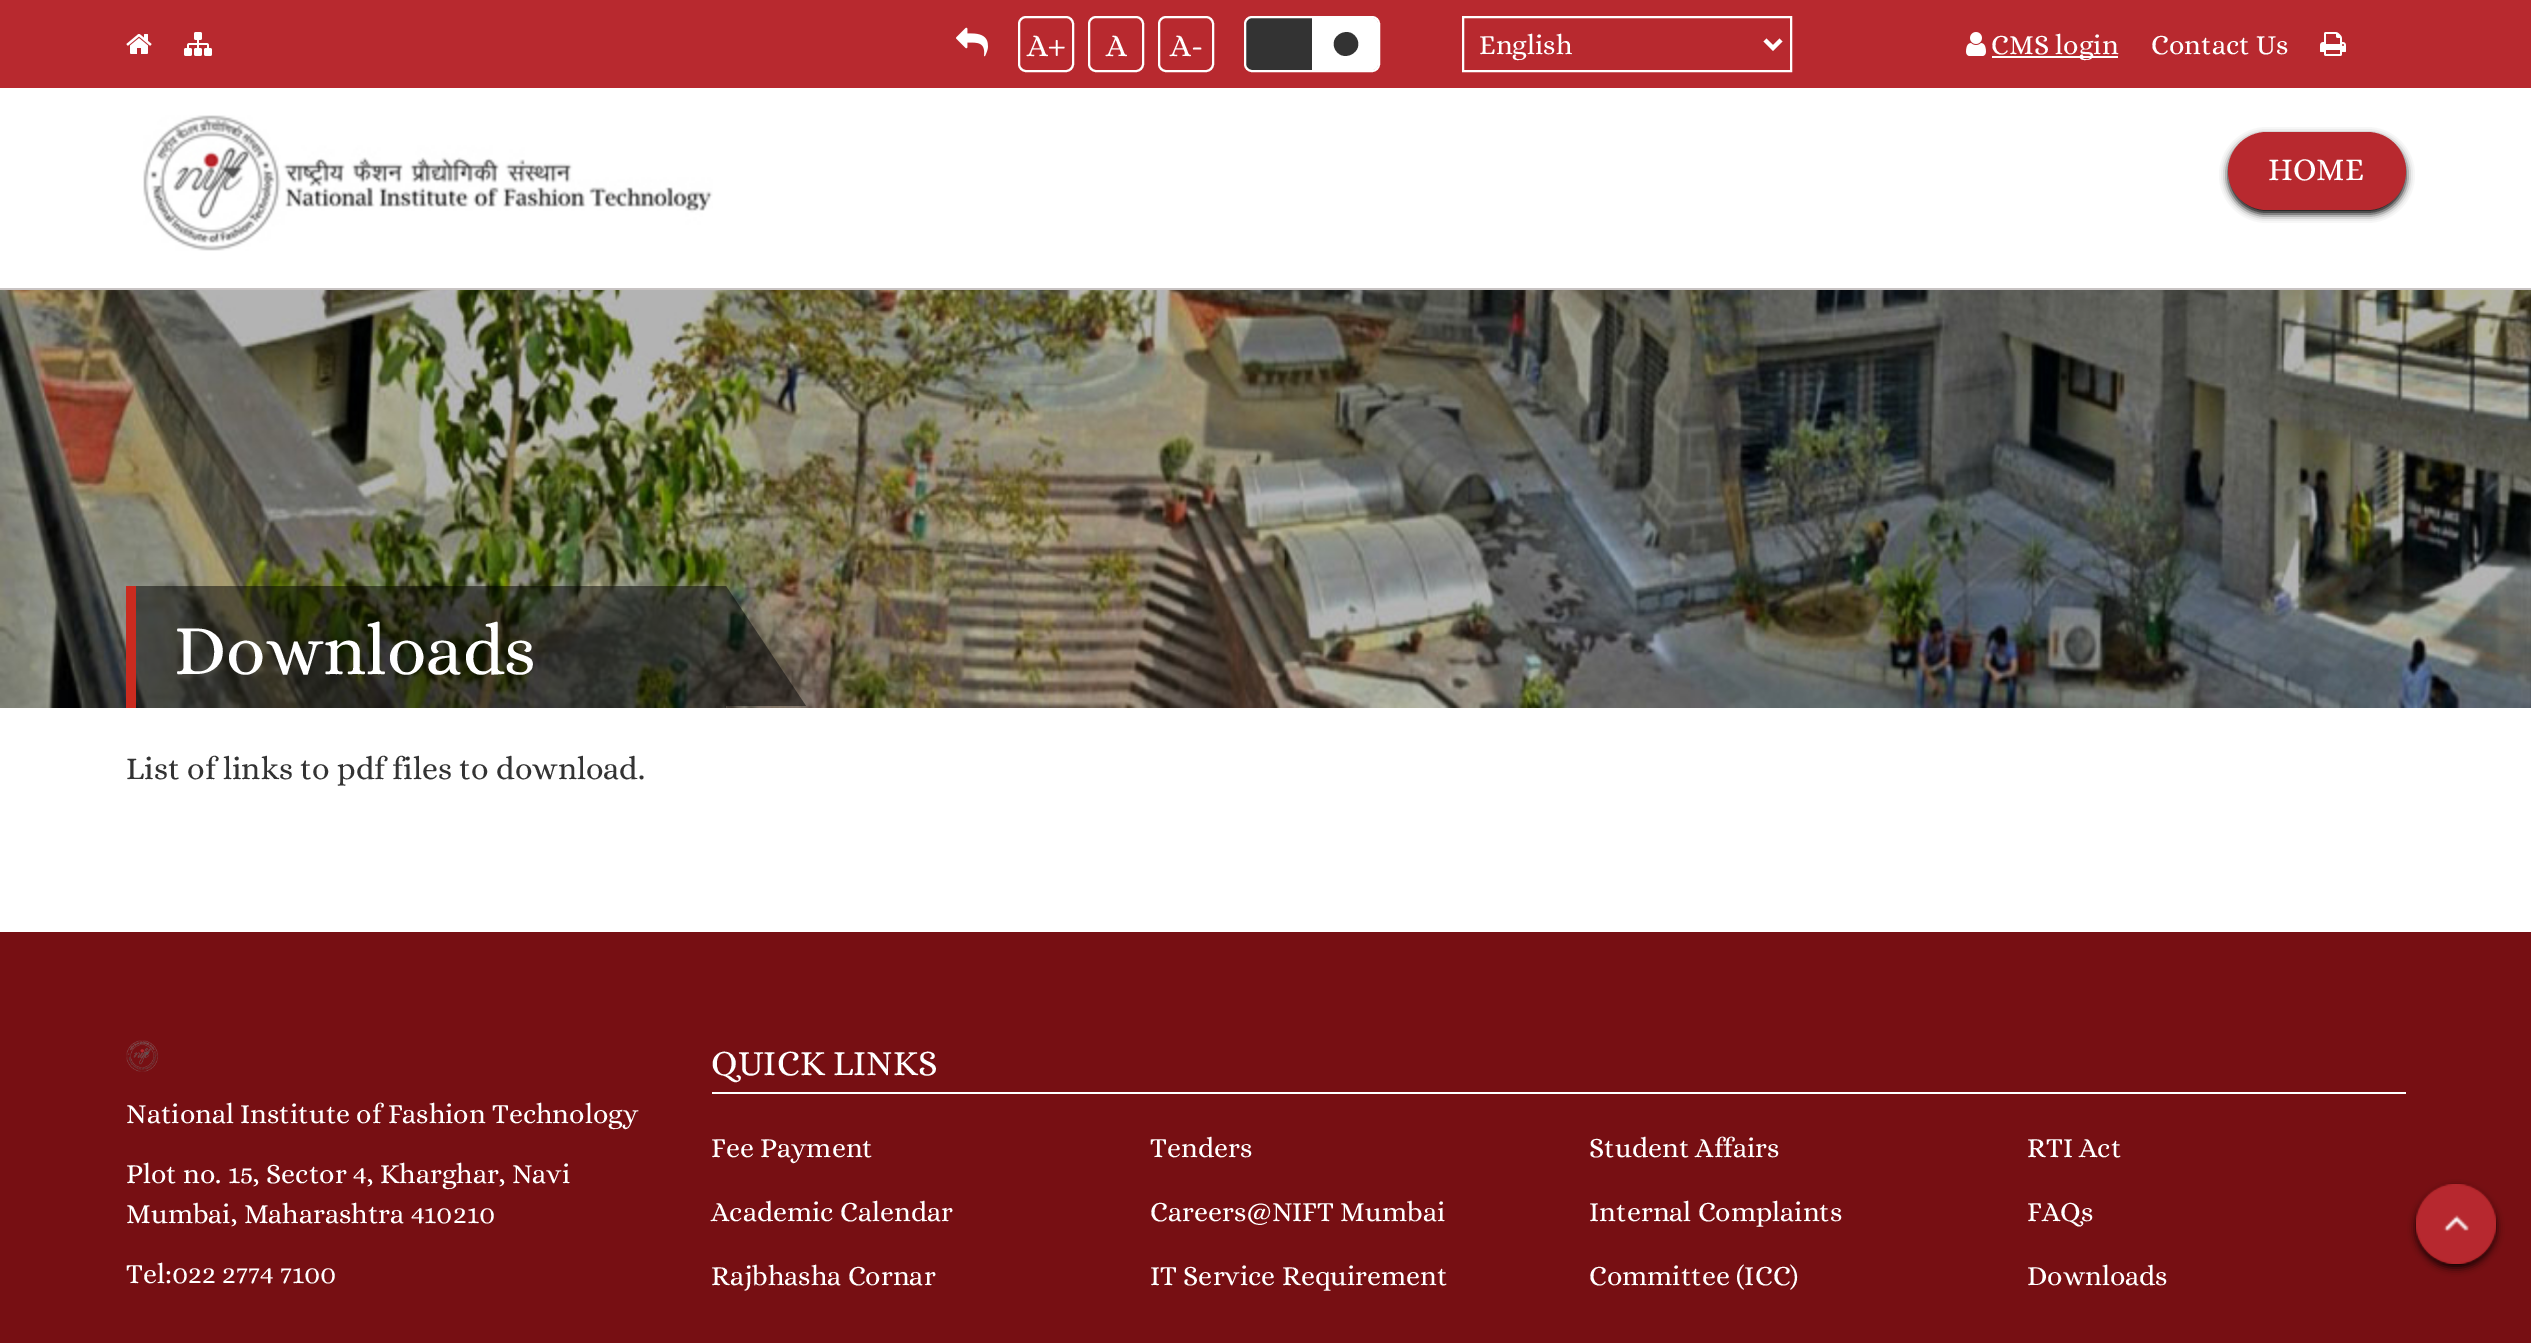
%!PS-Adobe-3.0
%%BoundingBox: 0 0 2531 1343
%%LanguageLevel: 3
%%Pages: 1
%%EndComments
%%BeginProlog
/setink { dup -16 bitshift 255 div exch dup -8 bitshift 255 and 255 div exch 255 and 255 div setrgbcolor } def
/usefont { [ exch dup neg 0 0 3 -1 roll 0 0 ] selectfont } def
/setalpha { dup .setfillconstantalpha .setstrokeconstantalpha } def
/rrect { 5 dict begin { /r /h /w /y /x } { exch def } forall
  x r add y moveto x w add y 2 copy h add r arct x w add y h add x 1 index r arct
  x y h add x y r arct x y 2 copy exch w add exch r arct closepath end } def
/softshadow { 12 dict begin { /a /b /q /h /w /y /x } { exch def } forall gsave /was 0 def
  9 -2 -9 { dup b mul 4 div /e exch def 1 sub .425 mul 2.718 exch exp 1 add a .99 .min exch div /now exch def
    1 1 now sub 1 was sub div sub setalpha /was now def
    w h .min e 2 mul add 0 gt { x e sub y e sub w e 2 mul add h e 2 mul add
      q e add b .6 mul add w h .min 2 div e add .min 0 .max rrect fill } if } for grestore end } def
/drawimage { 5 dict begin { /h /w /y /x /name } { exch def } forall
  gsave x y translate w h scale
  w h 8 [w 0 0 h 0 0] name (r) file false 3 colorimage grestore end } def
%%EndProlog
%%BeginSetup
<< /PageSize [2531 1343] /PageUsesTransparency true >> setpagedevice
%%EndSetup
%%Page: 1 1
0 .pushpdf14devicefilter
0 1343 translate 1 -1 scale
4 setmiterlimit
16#FFFFFF setink
0 0 2531 1343 rectfill
16#B8292F setink
0 0 2531 88 rectfill
(img1.raw) 126 34 26 20 drawimage
(img2.raw) 184 32 28 24 drawimage
(img3.raw) 956 27 32 30 drawimage
16#FFFFFF setink
2 setlinewidth
1019 17 54 54 7 rrect stroke
/Alice-Regular 32 usefont
1027 56 moveto (A+) show
1089 17 54 54 7 rrect stroke
1106 56 moveto (A) show
1159 17 54 54 7 rrect stroke
1170 56 moveto (A-) show
16#333333 setink
1245 17 134 54 7 rrect gsave fill grestore
16#FFFFFF setink
stroke
1312 18 moveto 1372 18 lineto 1375.5 18 1378 20.5 1378 24 curveto 1378 64 lineto 1378 67.5 1375.5 70 1372 70 curveto 1312 70 lineto closepath fill
16#333333 setink
1356.5 38 moveto 1364.5 51.5 1343.5 63.5 1335.5 50 curveto 1327.5 36.5 1348.5 24.5 1356.5 38 curveto closepath fill
16#FFFFFF setink
1463 17 328 54 rectstroke
4 setlinewidth
1765 40 moveto 1773 48 lineto 1781 40 lineto stroke
/Alice-Regular 28 usefont
1479 54 moveto (English) show
(img4.raw) 1966 32 20 24 drawimage
1992 56 126 2 rectfill
1991 54 moveto (CMS login) show
2151 54 moveto (Contact Us) show
(img5.raw) 2320 32 26 24 drawimage
16#C9C4C4 setink
0 288 2531 2 rectfill
(img6.raw) 143 115 570 136 drawimage
16#000000 setink
2228 136 178 78 39 4 1 softshadow
16#B8292F setink
2228 132 178 78 39 rrect fill
/Alice-Regular 32 usefont
16#FFFFFF setink
2268 180 moveto (HOME) show
(img7.raw) 0 290 2531 418 drawimage
0.5 setalpha
16#000000 setink
136 586 590 122 rectfill
1 setalpha
16#CA2B1F setink
126 586 10 122 rectfill
/Alice-Regular 72 usefont
16#FFFFFF setink
174 674 moveto (Downloads) show
0.5 setalpha
16#000000 setink
806 706 moveto 726 706 lineto 726 586 lineto closepath fill
/Alice-Regular 32 usefont
1 setalpha
16#333333 setink
126 779 moveto (List of links to pdf files to download.) show
16#770F13 setink
0 932 2531 411 rectfill
(img8.raw) 126 1040 32 32 drawimage
/Alice-Regular 28 usefont
16#FFFFFF setink
[
    [(National Institute of Fashion Technology) 126 1123]
    [(Plot no. 15, Sector 4, Kharghar, Navi) 126 1183]
    [(Mumbai, Maharashtra 410210) 126 1223]
    [(Tel:022 2774 7100) 126 1283]
] { aload pop moveto show } forall
712 1092 1694 2 rectfill
/Alice-Regular 36 usefont
711 1075 moveto (QUICK LINKS) show
/Alice-Regular 28 usefont
[
    [(Fee Payment) 711 1157]
    [(Academic Calendar) 711 1221]
    [(Rajbhasha Cornar) 711 1285]
    [(Tenders) 1150 1157]
    [(Careers@NIFT Mumbai) 1150 1221]
    [(IT Service Requirement) 1150 1285]
    [(Student Affairs) 1589 1157]
    [(Internal Complaints) 1589 1221]
    [(Committee \(ICC\)) 1589 1285]
    [(RTI Act) 2027 1157]
    [(FAQs) 2027 1221]
    [(Downloads) 2027 1285]
] { aload pop moveto show } forall
gsave
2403 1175 moveto 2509 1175 lineto 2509 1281 lineto 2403 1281 lineto closepath 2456 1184 moveto 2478 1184 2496 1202 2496 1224 curveto 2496 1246 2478 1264 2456 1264 curveto 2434 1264 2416 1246 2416 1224 curveto 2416 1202 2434 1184 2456 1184 curveto closepath eoclip newpath
16#0C0202 setink
2416 1188 80 80 40 4 1 softshadow
grestore
(img9.raw) 2416 1184 80 80 drawimage
(img10.raw) 2416 1184 80 80 drawimage
.poppdf14devicefilter showpage
%%EOF
